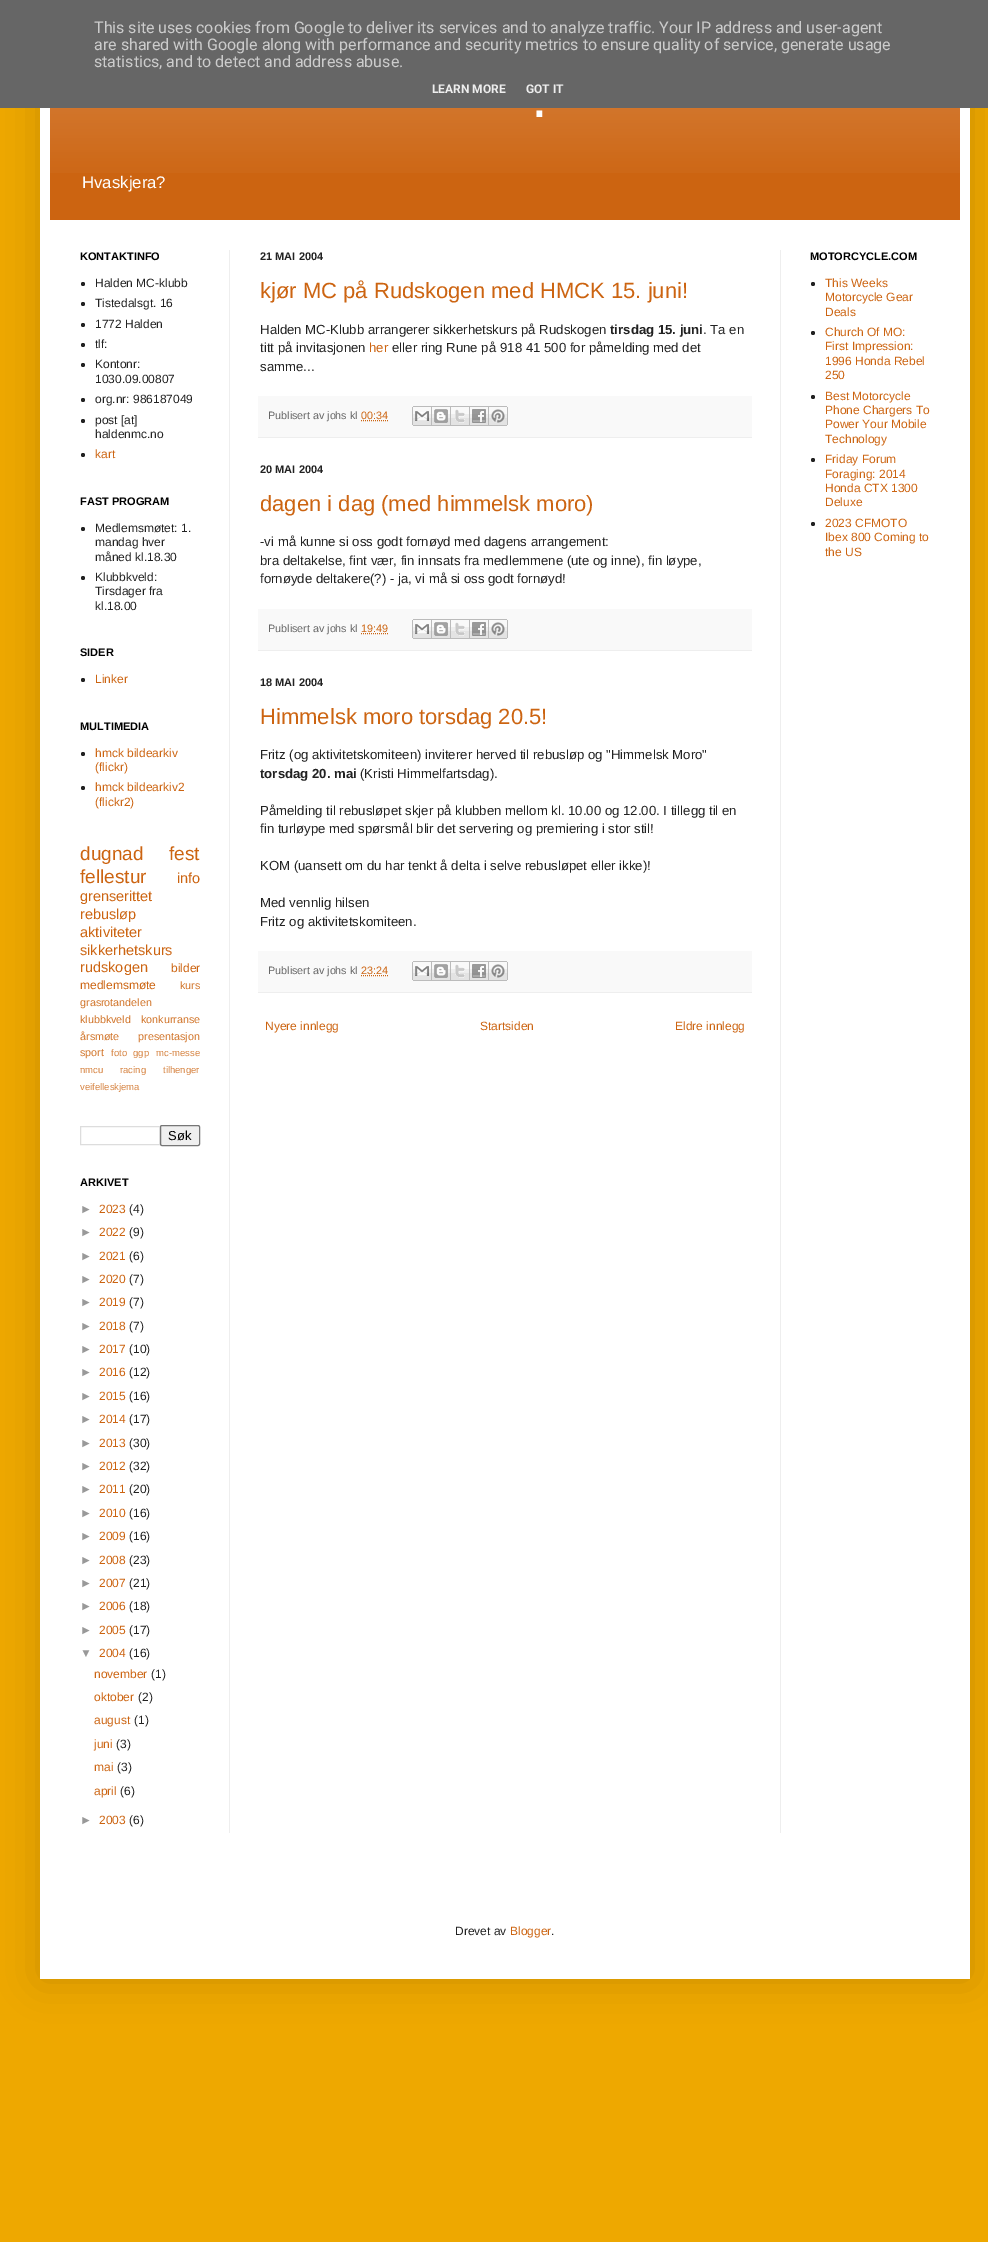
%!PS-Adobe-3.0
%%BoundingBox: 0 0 988 2242
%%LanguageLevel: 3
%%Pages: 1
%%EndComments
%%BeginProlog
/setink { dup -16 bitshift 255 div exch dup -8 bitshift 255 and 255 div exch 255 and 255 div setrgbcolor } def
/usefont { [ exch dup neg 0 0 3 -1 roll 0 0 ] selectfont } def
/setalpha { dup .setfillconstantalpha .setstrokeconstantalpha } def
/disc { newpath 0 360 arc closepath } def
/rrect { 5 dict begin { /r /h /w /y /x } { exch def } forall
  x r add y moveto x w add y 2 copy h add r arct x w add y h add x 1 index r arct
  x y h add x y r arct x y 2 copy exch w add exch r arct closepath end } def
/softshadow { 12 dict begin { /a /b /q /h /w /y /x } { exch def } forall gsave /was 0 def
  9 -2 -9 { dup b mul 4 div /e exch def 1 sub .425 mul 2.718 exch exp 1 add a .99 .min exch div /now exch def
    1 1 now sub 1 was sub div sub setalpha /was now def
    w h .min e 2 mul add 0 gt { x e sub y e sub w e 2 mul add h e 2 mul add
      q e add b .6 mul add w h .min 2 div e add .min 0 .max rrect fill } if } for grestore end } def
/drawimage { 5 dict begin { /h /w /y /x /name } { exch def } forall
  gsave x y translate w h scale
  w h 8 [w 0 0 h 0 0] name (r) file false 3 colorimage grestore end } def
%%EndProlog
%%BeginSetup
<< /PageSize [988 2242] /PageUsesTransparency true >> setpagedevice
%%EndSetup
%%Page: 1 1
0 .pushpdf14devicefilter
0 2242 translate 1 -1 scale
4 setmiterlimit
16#EEA800 setink
0 0 988 2242 rectfill
16#000000 setink
40 30 930 1949 0 20 0.15 softshadow
16#666666 setink
0 0 988 108 rectfill
/Roboto-Regular 16 usefont
16#CCCCCC setink
[
    [(This site uses cookies from Google to deliver its services and to analyze traffic. Your IP address and user-agent) 94 33]
    [(are shared with Google along with performance and security metrics to ensure quality of service, generate usage) 94 50]
    [(statistics, and to detect and address abuse.) 94 67]
] { aload pop moveto show } forall
/Roboto-Bold 12 usefont
16#EEEEEE setink
432 93 moveto (LEARN MORE) show
526 93 moveto (GOT IT) show
16#FFFFFF setink
40 108 930 1871 rectfill
16#CC6411 setink
50 108 910 112 rectfill
(img1.raw) 50 108 910 65 drawimage
/LiberationSans-Regular 60 usefont
16#FFFFFF setink
531 117 moveto (.) show
/LiberationSans-Regular 16.75 usefont
82 188 moveto (Hvaskjera?) show
16#EEEEEE setink
229 250 1 1583 rectfill
780 250 1 1583 rectfill
/LiberationSans-Bold 11 usefont
16#000000 setink
80 260 moveto (KONTAKTINFO) show
16#222222 setink
83 284 2 disc fill
/LiberationSans-Regular 12 usefont
95 287 moveto (Halden MC-klubb) show
83 304 2 disc fill
95 307 moveto (Tistedalsgt. 16) show
83 325 2 disc fill
95 328 moveto (1772 Halden) show
83 345 2 disc fill
95 348 moveto (tlf:) show
83 365 2 disc fill
95 368 moveto (Kontonr:) show
95 383 moveto (1030.09.00807) show
83 400 2 disc fill
95 403 moveto (org.nr: 986187049) show
83 421 2 disc fill
95 424 moveto (post [at]) show
95 438 moveto (haldenmc.no) show
83 455 2 disc fill
16#CC6411 setink
95 458 moveto (kart) show
/LiberationSans-Bold 11 usefont
16#000000 setink
80 505 moveto (FAST PROGRAM) show
16#222222 setink
83 529 2 disc fill
/LiberationSans-Regular 12 usefont
[
    [(Medlemsmøtet: 1.) 95 532]
    [(mandag hver) 95 546]
    [(måned kl.18.30) 95 561]
] { aload pop moveto show } forall
83 578 2 disc fill
[
    [(Klubbkveld:) 95 581]
    [(Tirsdager fra) 95 595]
    [(kl.18.00) 95 610]
] { aload pop moveto show } forall
/LiberationSans-Bold 11 usefont
16#000000 setink
80 656 moveto (SIDER) show
16#222222 setink
83 680 2 disc fill
/LiberationSans-Regular 12 usefont
16#CC6411 setink
95 683 moveto (Linker) show
/LiberationSans-Bold 11 usefont
16#000000 setink
80 730 moveto (MULTIMEDIA) show
16#222222 setink
83 754 2 disc fill
/LiberationSans-Regular 12 usefont
16#CC6411 setink
95 757 moveto (hmck bildearkiv) show
95 771 moveto (\(flickr\)) show
16#222222 setink
83 788 2 disc fill
16#CC6411 setink
95 791 moveto (hmck bildearkiv2) show
95 806 moveto (\(flickr2\)) show
/LiberationSans-Regular 19 usefont
[
    [(dugnad) 80 860]
    [(fest) 169 860]
    [(fellestur) 80 883]
] { aload pop moveto show } forall
/LiberationSans-Regular 14.5 usefont
[
    [(info) 177 883]
    [(grenserittet) 80 901]
    [(rebusløp) 80 919]
    [(aktiviteter) 80 937]
    [(sikkerhetskurs) 80 955]
    [(rudskogen) 80 972]
] { aload pop moveto show } forall
/LiberationSans-Regular 12 usefont
171 972 moveto (bilder) show
80 989 moveto (medlemsmøte) show
/LiberationSans-Regular 10.75 usefont
16#D17429 setink
[
    [(kurs) 180 989]
    [(grasrotandelen) 80 1006]
    [(klubbkveld) 80 1023]
    [(konkurranse) 141 1023]
    [(årsmøte) 80 1040]
    [(presentasjon) 138 1040]
    [(sport) 80 1056]
] { aload pop moveto show } forall
/LiberationSans-Regular 9.5 usefont
16#D68341 setink
[
    [(foto) 111 1056]
    [(ggp) 133 1056]
    [(mc-messe) 156 1056]
    [(nmcu) 80 1073]
    [(racing) 120 1073]
    [(tilhenger) 163 1073]
    [(veifelleskjema) 80 1090]
] { aload pop moveto show } forall
16#DDDDDD setink
80.5 1126.5 79 18 rectstroke
16#EFEFEF setink
160.5 1125.5 39 20 1.5 rrect gsave fill grestore
16#767676 setink
stroke
/LiberationSans-Regular 13 usefont
16#000000 setink
168 1140 moveto (Søk) show
/LiberationSans-Bold 11 usefont
80 1186 moveto (ARKIVET) show
/LiberationSans-Regular 12 usefont
16#999999 setink
80 1213 moveto (►) show
16#CC6411 setink
99 1213 moveto (2023) show
16#222222 setink
129 1213 moveto (\(4\)) show
16#999999 setink
80 1236 moveto (►) show
16#CC6411 setink
99 1236 moveto (2022) show
16#222222 setink
129 1236 moveto (\(9\)) show
16#999999 setink
80 1260 moveto (►) show
16#CC6411 setink
99 1260 moveto (2021) show
16#222222 setink
129 1260 moveto (\(6\)) show
16#999999 setink
80 1283 moveto (►) show
16#CC6411 setink
99 1283 moveto (2020) show
16#222222 setink
129 1283 moveto (\(7\)) show
16#999999 setink
80 1306 moveto (►) show
16#CC6411 setink
99 1306 moveto (2019) show
16#222222 setink
129 1306 moveto (\(7\)) show
16#999999 setink
80 1330 moveto (►) show
16#CC6411 setink
99 1330 moveto (2018) show
16#222222 setink
129 1330 moveto (\(7\)) show
16#999999 setink
80 1353 moveto (►) show
16#CC6411 setink
99 1353 moveto (2017) show
16#222222 setink
129 1353 moveto (\(10\)) show
16#999999 setink
80 1376 moveto (►) show
16#CC6411 setink
99 1376 moveto (2016) show
16#222222 setink
129 1376 moveto (\(12\)) show
16#999999 setink
80 1400 moveto (►) show
16#CC6411 setink
99 1400 moveto (2015) show
16#222222 setink
129 1400 moveto (\(16\)) show
16#999999 setink
80 1423 moveto (►) show
16#CC6411 setink
99 1423 moveto (2014) show
16#222222 setink
129 1423 moveto (\(17\)) show
16#999999 setink
80 1447 moveto (►) show
16#CC6411 setink
99 1447 moveto (2013) show
16#222222 setink
129 1447 moveto (\(30\)) show
16#999999 setink
80 1470 moveto (►) show
16#CC6411 setink
99 1470 moveto (2012) show
16#222222 setink
129 1470 moveto (\(32\)) show
16#999999 setink
80 1493 moveto (►) show
16#CC6411 setink
99 1493 moveto (2011) show
16#222222 setink
129 1493 moveto (\(20\)) show
16#999999 setink
80 1517 moveto (►) show
16#CC6411 setink
99 1517 moveto (2010) show
16#222222 setink
129 1517 moveto (\(16\)) show
16#999999 setink
80 1540 moveto (►) show
16#CC6411 setink
99 1540 moveto (2009) show
16#222222 setink
129 1540 moveto (\(16\)) show
16#999999 setink
80 1564 moveto (►) show
16#CC6411 setink
99 1564 moveto (2008) show
16#222222 setink
129 1564 moveto (\(23\)) show
16#999999 setink
80 1587 moveto (►) show
16#CC6411 setink
99 1587 moveto (2007) show
16#222222 setink
129 1587 moveto (\(21\)) show
16#999999 setink
80 1610 moveto (►) show
16#CC6411 setink
99 1610 moveto (2006) show
16#222222 setink
129 1610 moveto (\(18\)) show
16#999999 setink
80 1634 moveto (►) show
16#CC6411 setink
99 1634 moveto (2005) show
16#222222 setink
129 1634 moveto (\(17\)) show
16#999999 setink
80 1657 moveto (▼) show
16#CC6411 setink
99 1657 moveto (2004) show
16#222222 setink
129 1657 moveto (\(16\)) show
16#CC6411 setink
94 1678 moveto (november) show
16#222222 setink
151 1678 moveto (\(1\)) show
16#CC6411 setink
94 1701 moveto (oktober) show
16#222222 setink
138 1701 moveto (\(2\)) show
16#CC6411 setink
94 1724 moveto (august) show
16#222222 setink
134 1724 moveto (\(1\)) show
16#CC6411 setink
94 1748 moveto (juni) show
16#222222 setink
116 1748 moveto (\(3\)) show
16#CC6411 setink
94 1771 moveto (mai) show
16#222222 setink
117 1771 moveto (\(3\)) show
16#CC6411 setink
94 1795 moveto (april) show
16#222222 setink
120 1795 moveto (\(6\)) show
16#999999 setink
80 1824 moveto (►) show
16#CC6411 setink
99 1824 moveto (2003) show
16#222222 setink
129 1824 moveto (\(6\)) show
/LiberationSans-Bold 11 usefont
260 260 moveto (21 MAI 2004) show
/LiberationSans-Regular 22 usefont
16#CC6411 setink
260 298 moveto (kjør MC på Rudskogen med HMCK 15. juni!) show
/LiberationSans-Regular 13.2 usefont
16#222222 setink
260 334 moveto (Halden MC-Klubb arrangerer sikkerhetskurs på Rudskogen) show
/LiberationSans-Bold 13.2 usefont
610 334 moveto (tirsdag 15. juni) show
/LiberationSans-Regular 13.2 usefont
703 334 moveto (. Ta en) show
260 352 moveto (titt på invitasjonen) show
16#CC6411 setink
369 352 moveto (her) show
16#222222 setink
392 352 moveto (eller ring Rune på 918 41 500 for påmelding med det) show
260 371 moveto (samme...) show
16#F9F9F9 setink
258 396 494 41 rectfill
16#EEEEEE setink
258 437 494 1 rectfill
/LiberationSans-Regular 10.75 usefont
16#666666 setink
268 419 moveto (Publisert av johs kl) show
16#CC6411 setink
361 419 moveto (00:34) show
[1 1] 0 setdash
361 420.5 moveto 388 420.5 lineto stroke
(img2.raw) 412 406 20 20 drawimage
(img3.raw) 432 406 19 20 drawimage
(img4.raw) 451 406 19 20 drawimage
(img5.raw) 470 406 19 20 drawimage
(img6.raw) 489 406 19 20 drawimage
/LiberationSans-Bold 11 usefont
16#222222 setink
260 473 moveto (20 MAI 2004) show
/LiberationSans-Regular 22 usefont
16#CC6411 setink
260 511 moveto (dagen i dag \(med himmelsk moro\)) show
/LiberationSans-Regular 13.2 usefont
16#222222 setink
[
    [(-vi må kunne si oss godt fornøyd med dagens arrangement:) 260 546]
    [(bra deltakelse, fint vær, fin innsats fra medlemmene \(ute og inne\), fin løype,) 260 565]
    [(fornøyde deltakere\(?\) - ja, vi må si oss godt fornøyd!) 260 583]
] { aload pop moveto show } forall
16#F9F9F9 setink
258 609 494 41 rectfill
16#EEEEEE setink
258 650 494 1 rectfill
/LiberationSans-Regular 10.75 usefont
16#666666 setink
268 632 moveto (Publisert av johs kl) show
16#CC6411 setink
361 632 moveto (19:49) show
361 633.5 moveto 388 633.5 lineto stroke
(img2.raw) 412 619 20 20 drawimage
(img3.raw) 432 619 19 20 drawimage
(img4.raw) 451 619 19 20 drawimage
(img5.raw) 470 619 19 20 drawimage
(img6.raw) 489 619 19 20 drawimage
/LiberationSans-Bold 11 usefont
16#222222 setink
260 686 moveto (18 MAI 2004) show
/LiberationSans-Regular 22 usefont
16#CC6411 setink
260 724 moveto (Himmelsk moro torsdag 20.5!) show
/LiberationSans-Regular 13.2 usefont
16#222222 setink
260 759 moveto (Fritz \(og aktivitetskomiteen\) inviterer herved til rebusløp og "Himmelsk Moro") show
/LiberationSans-Bold 13.2 usefont
260 778 moveto (torsdag 20. mai) show
/LiberationSans-Regular 13.2 usefont
[
    [(\(Kristi Himmelfartsdag\).) 360 778]
    [(Påmelding til rebusløpet skjer på klubben mellom kl. 10.00 og 12.00. I tillegg til en) 260 815]
    [(fin turløype med spørsmål blir det servering og premiering i stor stil!) 260 833]
    [(KOM \(uansett om du har tenkt å delta i selve rebusløpet eller ikke\)!) 260 870]
    [(Med vennlig hilsen) 260 907]
    [(Fritz og aktivitetskomiteen.) 260 926]
] { aload pop moveto show } forall
16#F9F9F9 setink
258 951 494 41 rectfill
16#EEEEEE setink
258 992 494 1 rectfill
/LiberationSans-Regular 10.75 usefont
16#666666 setink
268 974 moveto (Publisert av johs kl) show
16#CC6411 setink
361 974 moveto (23:24) show
361 975.5 moveto 388 975.5 lineto stroke
(img2.raw) 412 961 20 20 drawimage
(img3.raw) 432 961 19 20 drawimage
(img4.raw) 451 961 19 20 drawimage
(img5.raw) 470 961 19 20 drawimage
(img6.raw) 489 961 19 20 drawimage
/LiberationSans-Regular 12 usefont
[
    [(Nyere innlegg) 265 1030]
    [(Startsiden) 480 1030]
    [(Eldre innlegg) 675 1030]
] { aload pop moveto show } forall
/LiberationSans-Bold 11 usefont
16#000000 setink
810 260 moveto (MOTORCYCLE.COM) show
16#222222 setink
813 284 2 disc fill
/LiberationSans-Regular 12 usefont
16#CC6411 setink
[
    [(This Weeks) 825 287]
    [(Motorcycle Gear) 825 301]
    [(Deals) 825 316]
] { aload pop moveto show } forall
16#222222 setink
813 333 2 disc fill
16#CC6411 setink
[
    [(Church Of MO:) 825 336]
    [(First Impression:) 825 350]
    [(1996 Honda Rebel) 825 365]
    [(250) 825 379]
] { aload pop moveto show } forall
16#222222 setink
813 397 2 disc fill
16#CC6411 setink
[
    [(Best Motorcycle) 825 400]
    [(Phone Chargers To) 825 414]
    [(Power Your Mobile) 825 428]
    [(Technology) 825 443]
] { aload pop moveto show } forall
16#222222 setink
813 460 2 disc fill
16#CC6411 setink
[
    [(Friday Forum) 825 463]
    [(Foraging: 2014) 825 478]
    [(Honda CTX 1300) 825 492]
    [(Deluxe) 825 506]
] { aload pop moveto show } forall
16#222222 setink
813 524 2 disc fill
16#CC6411 setink
[
    [(2023 CFMOTO) 825 527]
    [(Ibex 800 Coming to) 825 541]
    [(the US) 825 556]
] { aload pop moveto show } forall
16#222222 setink
455 1935 moveto (Drevet av) show
16#CC6411 setink
510 1935 moveto (Blogger) show
16#222222 setink
551 1935 moveto (.) show
.poppdf14devicefilter showpage
%%EOF
